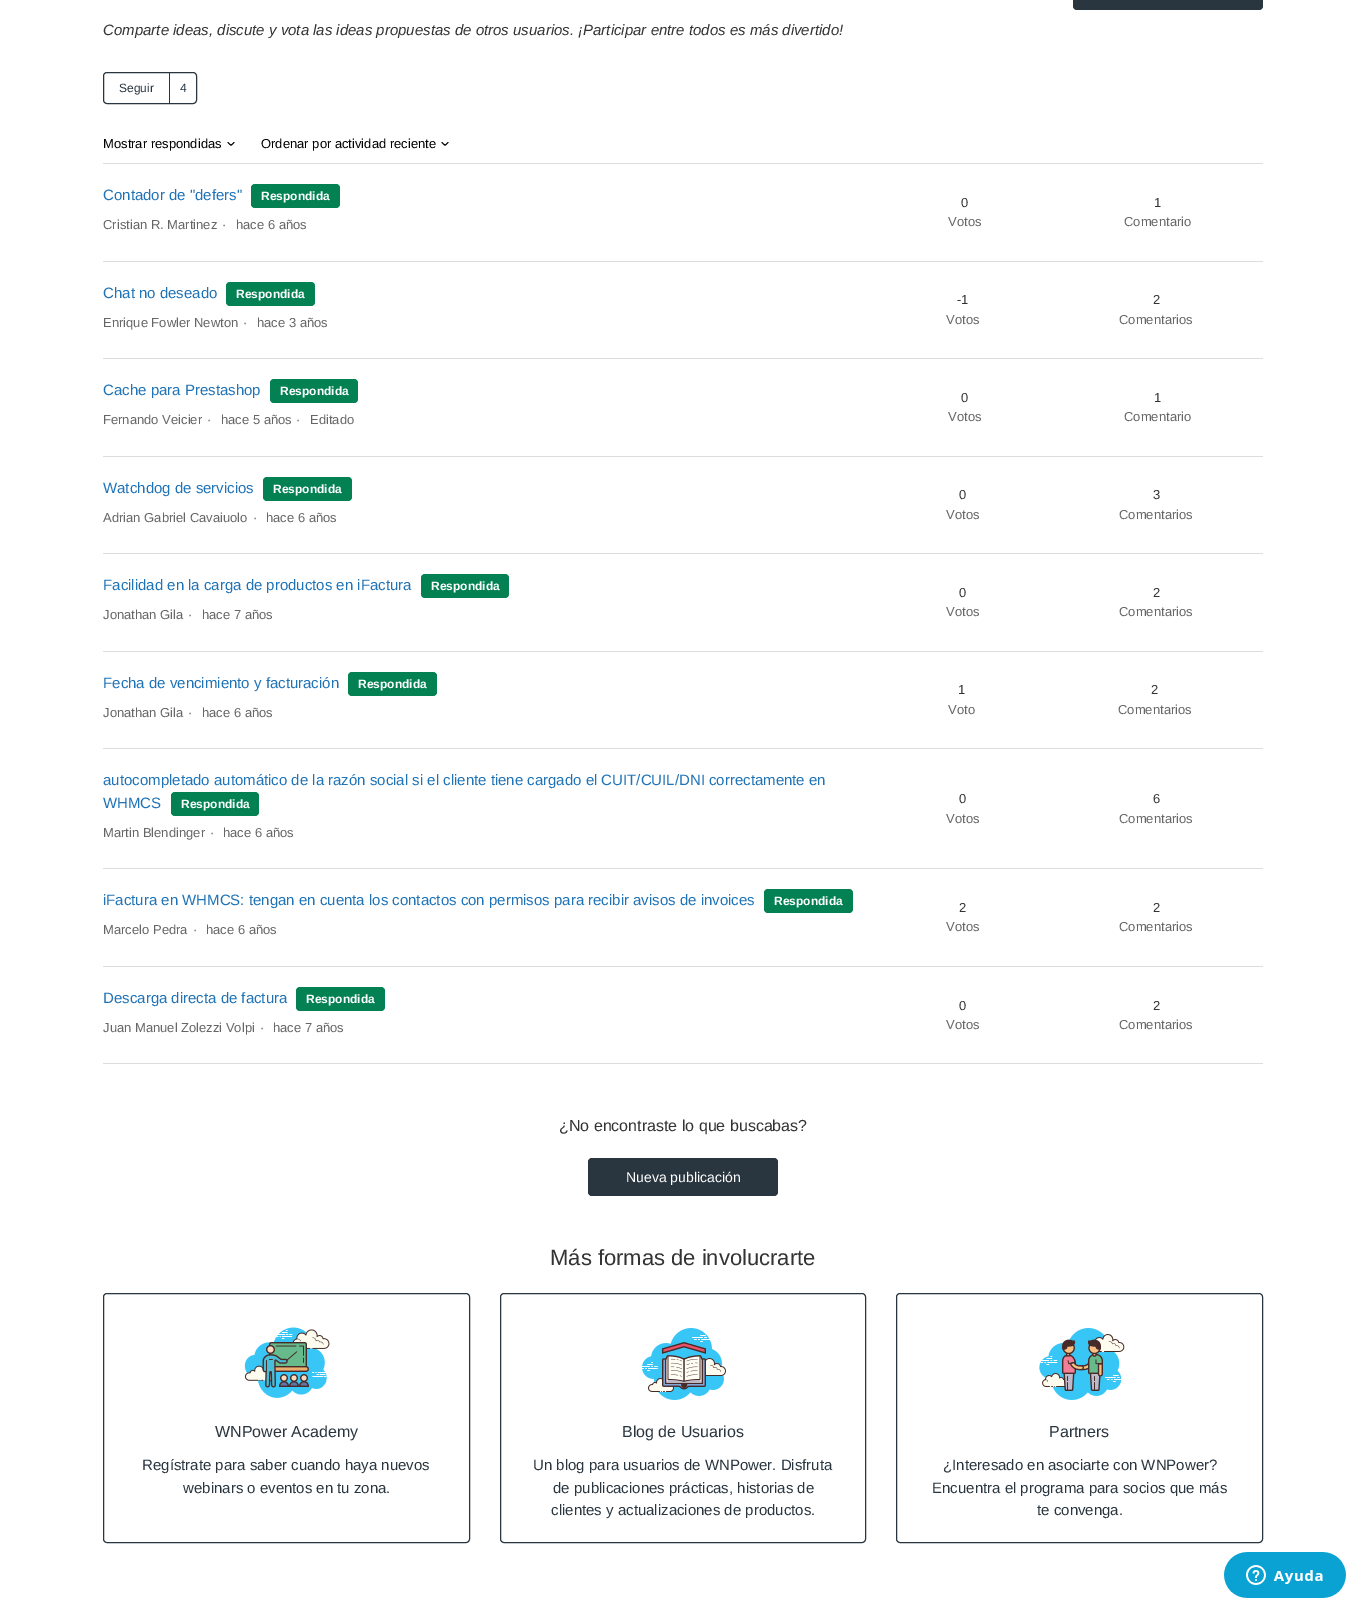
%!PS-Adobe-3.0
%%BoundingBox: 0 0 1366 1612
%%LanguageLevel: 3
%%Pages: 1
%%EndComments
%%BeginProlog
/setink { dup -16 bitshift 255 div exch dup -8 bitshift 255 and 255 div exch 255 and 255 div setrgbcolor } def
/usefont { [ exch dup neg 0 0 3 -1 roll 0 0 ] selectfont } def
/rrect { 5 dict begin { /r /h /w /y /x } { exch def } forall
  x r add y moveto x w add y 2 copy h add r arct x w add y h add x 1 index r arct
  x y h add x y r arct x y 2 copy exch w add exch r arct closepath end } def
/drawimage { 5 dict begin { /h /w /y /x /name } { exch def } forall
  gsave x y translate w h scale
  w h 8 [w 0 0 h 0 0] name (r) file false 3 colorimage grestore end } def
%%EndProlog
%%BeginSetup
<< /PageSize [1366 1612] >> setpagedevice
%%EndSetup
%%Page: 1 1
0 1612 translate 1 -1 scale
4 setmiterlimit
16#FFFFFF setink
0 0 1366 1612 rectfill
16#2A363F setink
1073 -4 190 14 4 rrect fill
/LiberationSans-Italic 15 usefont
16#333333 setink
103 35 moveto (Comparte ideas, discute y vota las ideas propuestas de otros usuarios. ¡Participar entre todos es más divertido!) show
16#2A363F setink
103.5 72.5 93 31 3.5 rrect stroke
/LiberationSans-Regular 12 usefont
119 92 moveto (Seguir) show
169 73 1 30 rectfill
180 92 moveto (4) show
16#DDDDDD setink
103 163 1160 1 rectfill
/LiberationSans-Regular 13 usefont
16#000000 setink
103 148 moveto (Mostrar respondidas) show
1 setlinecap
228 142.5 moveto 231.5 146 230.5 146 234 142.5 curveto stroke
261 148 moveto (Ordenar por actividad reciente) show
442 142.5 moveto 445.5 146 444.5 146 448 142.5 curveto stroke
16#DDDDDD setink
103 261 1160 1 rectfill
/LiberationSans-Regular 15 usefont
16#1F73B7 setink
103 200 moveto (Contador de "defers") show
16#038153 setink
251 184 89 24 4 rrect fill
/LiberationSans-Bold 12 usefont
16#FFFFFF setink
261 200 moveto (Respondida) show
/LiberationSans-Regular 13 usefont
16#666666 setink
[
    [(Cristian R. Martinez) 103 229]
    [(·) 222 229]
    [(hace 6 años) 236 229]
] { aload pop moveto show } forall
16#333333 setink
961 207 moveto (0) show
16#666666 setink
948 226 moveto (Votos) show
16#333333 setink
1154 207 moveto (1) show
16#666666 setink
1124 226 moveto (Comentario) show
16#DDDDDD setink
103 358 1160 1 rectfill
/LiberationSans-Regular 15 usefont
16#1F73B7 setink
103 298 moveto (Chat no deseado) show
16#038153 setink
226 282 89 24 4 rrect fill
/LiberationSans-Bold 12 usefont
16#FFFFFF setink
236 298 moveto (Respondida) show
/LiberationSans-Regular 13 usefont
16#666666 setink
[
    [(Enrique Fowler Newton) 103 327]
    [(·) 243 327]
    [(hace 3 años) 257 327]
] { aload pop moveto show } forall
16#333333 setink
957 304 moveto (-1) show
16#666666 setink
946 324 moveto (Votos) show
16#333333 setink
1153 304 moveto (2) show
16#666666 setink
1119 324 moveto (Comentarios) show
16#DDDDDD setink
103 456 1160 1 rectfill
/LiberationSans-Regular 15 usefont
16#1F73B7 setink
103 395 moveto (Cache para Prestashop) show
16#038153 setink
270 379 88 24 4 rrect fill
/LiberationSans-Bold 12 usefont
16#FFFFFF setink
280 395 moveto (Respondida) show
/LiberationSans-Regular 13 usefont
16#666666 setink
[
    [(Fernando Veicier) 103 424]
    [(·) 207 424]
    [(hace 5 años) 221 424]
    [(·) 296 424]
    [(Editado) 310 424]
] { aload pop moveto show } forall
16#333333 setink
961 402 moveto (0) show
16#666666 setink
948 421 moveto (Votos) show
16#333333 setink
1154 402 moveto (1) show
16#666666 setink
1124 421 moveto (Comentario) show
16#DDDDDD setink
103 553 1160 1 rectfill
/LiberationSans-Regular 15 usefont
16#1F73B7 setink
103 493 moveto (Watchdog de servicios) show
16#038153 setink
263 477 89 24 4 rrect fill
/LiberationSans-Bold 12 usefont
16#FFFFFF setink
273 493 moveto (Respondida) show
/LiberationSans-Regular 13 usefont
16#666666 setink
[
    [(Adrian Gabriel Cavaiuolo) 103 522]
    [(·) 253 522]
    [(hace 6 años) 266 522]
] { aload pop moveto show } forall
16#333333 setink
959 499 moveto (0) show
16#666666 setink
946 519 moveto (Votos) show
16#333333 setink
1153 499 moveto (3) show
16#666666 setink
1119 519 moveto (Comentarios) show
16#DDDDDD setink
103 651 1160 1 rectfill
/LiberationSans-Regular 15 usefont
16#1F73B7 setink
103 590 moveto (Facilidad en la carga de productos en iFactura) show
16#038153 setink
421 574 88 24 4 rrect fill
/LiberationSans-Bold 12 usefont
16#FFFFFF setink
431 590 moveto (Respondida) show
/LiberationSans-Regular 13 usefont
16#666666 setink
[
    [(Jonathan Gila) 103 619]
    [(·) 188 619]
    [(hace 7 años) 202 619]
] { aload pop moveto show } forall
16#333333 setink
959 597 moveto (0) show
16#666666 setink
946 616 moveto (Votos) show
16#333333 setink
1153 597 moveto (2) show
16#666666 setink
1119 616 moveto (Comentarios) show
16#DDDDDD setink
103 748 1160 1 rectfill
/LiberationSans-Regular 15 usefont
16#1F73B7 setink
103 688 moveto (Fecha de vencimiento y facturación) show
16#038153 setink
348 672 89 24 4 rrect fill
/LiberationSans-Bold 12 usefont
16#FFFFFF setink
358 688 moveto (Respondida) show
/LiberationSans-Regular 13 usefont
16#666666 setink
[
    [(Jonathan Gila) 103 717]
    [(·) 188 717]
    [(hace 6 años) 202 717]
] { aload pop moveto show } forall
16#333333 setink
958 694 moveto (1) show
16#666666 setink
948 714 moveto (Voto) show
16#333333 setink
1151 694 moveto (2) show
16#666666 setink
1118 714 moveto (Comentarios) show
16#DDDDDD setink
103 868 1160 1 rectfill
/LiberationSans-Regular 15 usefont
16#1F73B7 setink
103 785 moveto (autocompletado automático de la razón social si el cliente tiene cargado el CUIT/CUIL/DNI correctamente en) show
103 808 moveto (WHMCS) show
16#038153 setink
171 792 88 24 4 rrect fill
/LiberationSans-Bold 12 usefont
16#FFFFFF setink
181 808 moveto (Respondida) show
/LiberationSans-Regular 13 usefont
16#666666 setink
[
    [(Martin Blendinger) 103 837]
    [(·) 210 837]
    [(hace 6 años) 223 837]
] { aload pop moveto show } forall
16#333333 setink
959 803 moveto (0) show
16#666666 setink
946 823 moveto (Votos) show
16#333333 setink
1153 803 moveto (6) show
16#666666 setink
1119 823 moveto (Comentarios) show
16#DDDDDD setink
103 966 1160 1 rectfill
/LiberationSans-Regular 15 usefont
16#1F73B7 setink
103 905 moveto (iFactura en WHMCS: tengan en cuenta los contactos con permisos para recibir avisos de invoices) show
16#038153 setink
764 889 89 24 4 rrect fill
/LiberationSans-Bold 12 usefont
16#FFFFFF setink
774 905 moveto (Respondida) show
/LiberationSans-Regular 13 usefont
16#666666 setink
[
    [(Marcelo Pedra) 103 934]
    [(·) 193 934]
    [(hace 6 años) 206 934]
] { aload pop moveto show } forall
16#333333 setink
959 912 moveto (2) show
16#666666 setink
946 931 moveto (Votos) show
16#333333 setink
1153 912 moveto (2) show
16#666666 setink
1119 931 moveto (Comentarios) show
16#DDDDDD setink
103 1063 1160 1 rectfill
/LiberationSans-Regular 15 usefont
16#1F73B7 setink
103 1003 moveto (Descarga directa de factura) show
16#038153 setink
296 987 89 24 4 rrect fill
/LiberationSans-Bold 12 usefont
16#FFFFFF setink
306 1003 moveto (Respondida) show
/LiberationSans-Regular 13 usefont
16#666666 setink
[
    [(Juan Manuel Zolezzi Volpi) 103 1032]
    [(·) 260 1032]
    [(hace 7 años) 273 1032]
] { aload pop moveto show } forall
16#333333 setink
959 1010 moveto (0) show
16#666666 setink
946 1029 moveto (Votos) show
16#333333 setink
1153 1010 moveto (2) show
16#666666 setink
1119 1029 moveto (Comentarios) show
/LiberationSans-Regular 16 usefont
16#333333 setink
559 1131 moveto (¿No encontraste lo que buscabas?) show
16#2A363F setink
588 1158 190 38 4 rrect fill
/LiberationSans-Regular 14 usefont
16#FFFFFF setink
626 1182 moveto (Nueva publicación) show
/LiberationSans-Regular 22 usefont
16#333333 setink
550 1265 moveto (Más formas de involucrarte) show
16#2A363F setink
0 setlinecap
103.5 1293.5 366 249 3.5 rrect stroke
(img1.raw) 244 1327 86 71 drawimage
/LiberationSans-Regular 16 usefont
215 1437 moveto (WNPower Academy) show
/LiberationSans-Regular 15 usefont
142 1470 moveto (Regístrate para saber cuando haya nuevos) show
183 1493 moveto (webinars o eventos en tu zona.) show
500.5 1293.5 365 249 3.5 rrect stroke
(img2.raw) 642 1328 84 72 drawimage
/LiberationSans-Regular 16 usefont
622 1437 moveto (Blog de Usuarios) show
/LiberationSans-Regular 15 usefont
[
    [(Un blog para usuarios de WNPower. Disfruta) 533 1470]
    [(de publicaciones prácticas, historias de) 553 1493]
    [(clientes y actualizaciones de productos.) 551 1515]
] { aload pop moveto show } forall
896.5 1293.5 366 249 3.5 rrect stroke
(img3.raw) 1039 1328 86 72 drawimage
/LiberationSans-Regular 16 usefont
1049 1437 moveto (Partners) show
/LiberationSans-Regular 15 usefont
[
    [(¿Interesado en asociarte con WNPower?) 943 1470]
    [(Encuentra el programa para socios que más) 932 1493]
    [(te convenga.) 1037 1515]
] { aload pop moveto show } forall
(img4.raw) 1224 1552 122 46 drawimage
showpage
%%EOF
